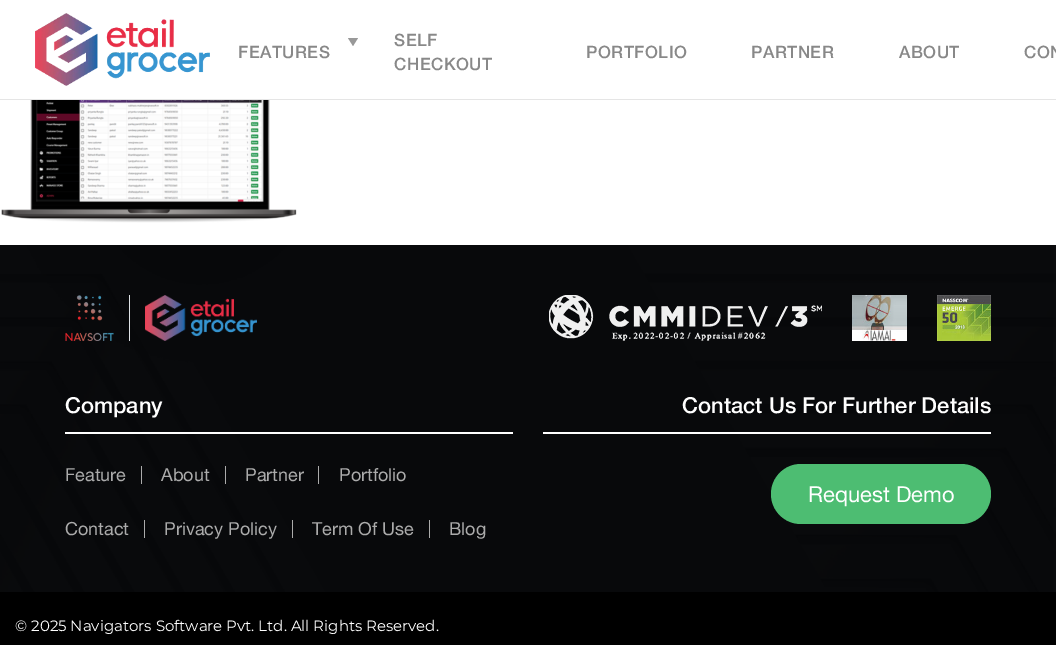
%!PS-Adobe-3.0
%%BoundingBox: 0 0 1056 645
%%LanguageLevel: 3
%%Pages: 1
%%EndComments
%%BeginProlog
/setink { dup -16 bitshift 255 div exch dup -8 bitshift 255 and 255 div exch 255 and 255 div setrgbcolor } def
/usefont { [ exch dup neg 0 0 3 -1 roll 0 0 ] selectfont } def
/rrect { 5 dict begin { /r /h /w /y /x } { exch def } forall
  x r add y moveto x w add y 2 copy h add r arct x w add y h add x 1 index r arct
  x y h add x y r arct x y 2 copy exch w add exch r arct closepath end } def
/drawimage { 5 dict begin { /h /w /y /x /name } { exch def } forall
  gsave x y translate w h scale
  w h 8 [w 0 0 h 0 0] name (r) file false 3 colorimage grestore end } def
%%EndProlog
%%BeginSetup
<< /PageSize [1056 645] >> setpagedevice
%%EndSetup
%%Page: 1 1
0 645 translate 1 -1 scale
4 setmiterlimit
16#FFFFFF setink
0 0 1056 645 rectfill
16#E5E5E5 setink
0 99 1056 1 rectfill
(img1.raw) 35 13 175 73 drawimage
16#999999 setink
348 38 moveto 358 38 lineto 353 46 lineto closepath fill
/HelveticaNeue-Medium 17 usefont
16#888888 setink
238 58 moveto 0.5 0 (FEATURES) ashow
394 46 moveto 0.5 0 (SELF) ashow
394 70 moveto 0.5 0 (CHECKOUT) ashow
586 58 moveto 0.5 0 (PORTFOLIO) ashow
751 58 moveto 0.5 0 (PARTNER) ashow
899 58 moveto 0.5 0 (ABOUT) ashow
1024 58 moveto 0.5 0 (CON) ashow
(img2.raw) 1 100 296 123 drawimage
(img3.raw) 0 245 1056 347 drawimage
(img4.raw) 65 295 49 46 drawimage
16#DEE2E6 setink
129 295 1 46 rectfill
(img5.raw) 145 295 112 46 drawimage
(img6.raw) 549 295 273 46 drawimage
(img7.raw) 852 295 55 46 drawimage
(img8.raw) 937 295 54 46 drawimage
16#FFFFFF setink
65 432 448 2 rectfill
/HelveticaNeue-Medium 22 usefont
65 413 moveto (Company) show
16#ABABAB setink
141 466 1 18 rectfill
/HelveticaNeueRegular-Regular 18 usefont
65 481 moveto (Feature) show
225 466 1 18 rectfill
161 481 moveto (About) show
318 466 1 18 rectfill
245 481 moveto (Partner) show
339 481 moveto (Portfolio) show
144 520 1 18 rectfill
65 535 moveto (Contact) show
292 520 1 18 rectfill
164 535 moveto (Privacy Policy) show
429 520 1 18 rectfill
312 535 moveto (Term Of Use) show
449 535 moveto (Blog) show
16#FFFFFF setink
543 432 448 2 rectfill
/HelveticaNeue-Medium 22 usefont
682 413 moveto (Contact Us For Further Details) show
16#4DBD72 setink
771 464 220 60 30 rrect fill
/HelveticaNeueRegular-Regular 22 usefont
16#FFFFFF setink
808 502 moveto (Request Demo) show
16#000000 setink
0 592 1056 53 rectfill
/Montserrat-Regular 15 usefont
16#FFFFFF setink
15 631 moveto (© 2025 Navigators Software Pvt. Ltd. All Rights Reserved.) show
showpage
%%EOF
